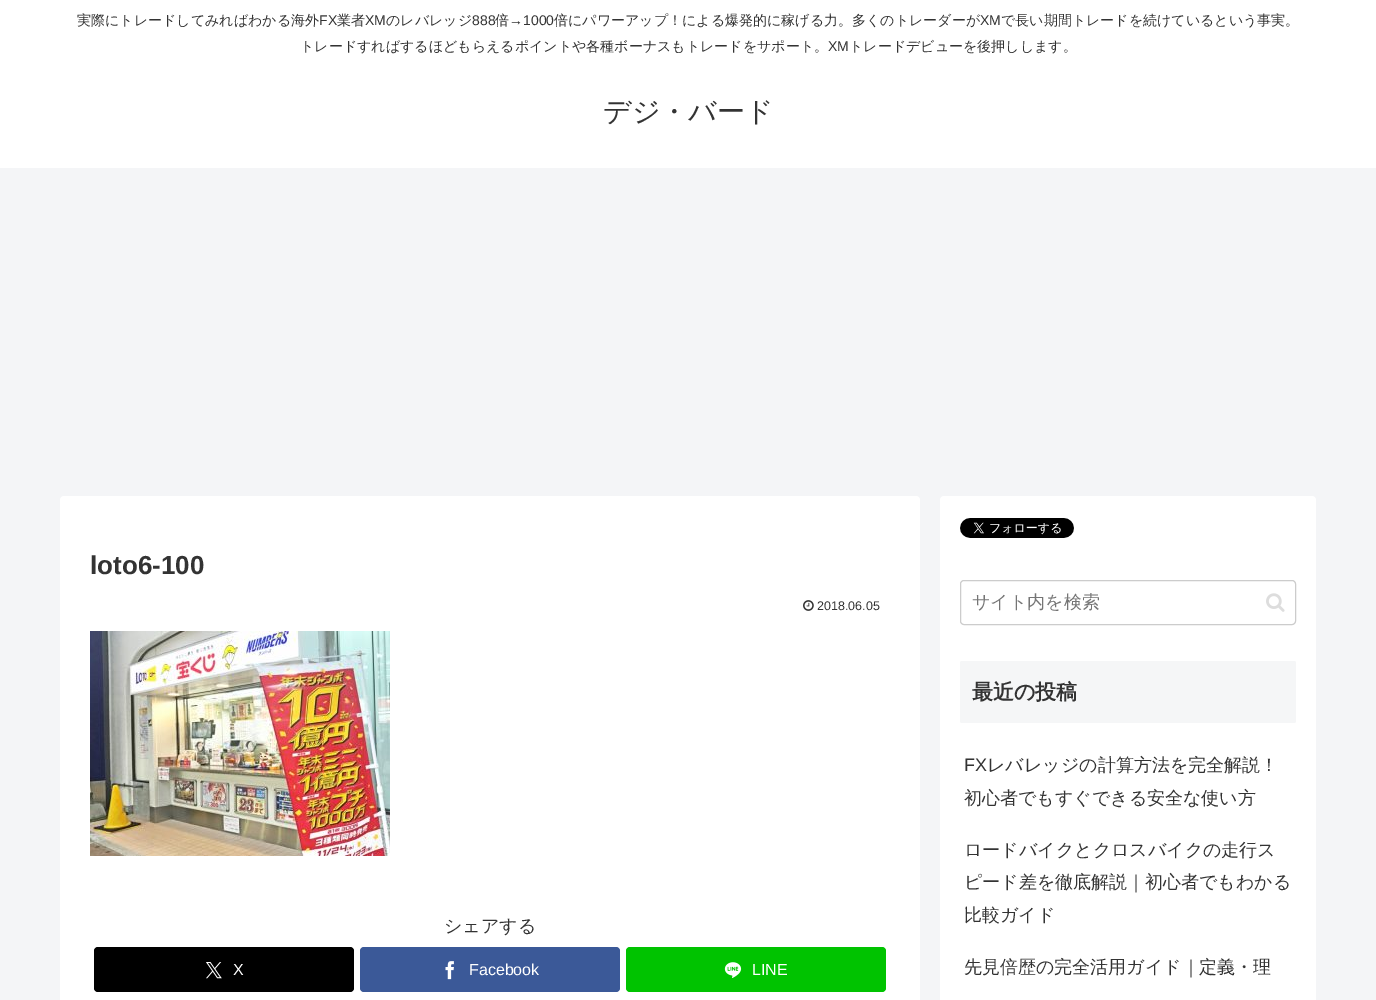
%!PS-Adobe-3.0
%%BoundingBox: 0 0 1376 1000
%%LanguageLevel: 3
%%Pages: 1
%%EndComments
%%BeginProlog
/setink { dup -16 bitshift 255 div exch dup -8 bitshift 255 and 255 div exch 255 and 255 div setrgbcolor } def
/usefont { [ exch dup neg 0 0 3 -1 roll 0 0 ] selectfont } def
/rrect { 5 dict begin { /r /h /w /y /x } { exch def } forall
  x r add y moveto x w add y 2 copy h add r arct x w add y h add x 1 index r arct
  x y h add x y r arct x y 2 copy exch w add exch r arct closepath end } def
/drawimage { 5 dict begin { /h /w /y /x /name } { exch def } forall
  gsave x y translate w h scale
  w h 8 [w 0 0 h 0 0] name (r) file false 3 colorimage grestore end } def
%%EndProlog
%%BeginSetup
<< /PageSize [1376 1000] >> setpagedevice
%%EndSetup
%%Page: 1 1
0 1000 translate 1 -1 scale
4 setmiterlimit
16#F4F5F7 setink
0 0 1376 1000 rectfill
16#FFFFFF setink
0 0 1376 168 rectfill
/WenQuanYiZenHei-Medium 14 usefont
16#333333 setink
77 25 moveto (実際にトレードしてみればわかる海外) show
/LiberationSans-Regular 14 usefont
319 25 moveto (FX) show
/WenQuanYiZenHei-Medium 14 usefont
337 25 moveto (業者) show
/LiberationSans-Regular 14 usefont
365 25 moveto (XM) show
/WenQuanYiZenHei-Medium 14 usefont
386 25 moveto (のレバレッジ) show
/LiberationSans-Regular 14 usefont
472 25 moveto (888) show
/WenQuanYiZenHei-Medium 14 usefont
495 25 moveto (倍) show
/LiberationSans-Regular 14 usefont
509 25 moveto (→1000) show
/WenQuanYiZenHei-Medium 14 usefont
554 25 moveto (倍にパワーアップ！による爆発的に稼げる力。多くのトレーダーが) show
/LiberationSans-Regular 14 usefont
980 25 moveto (XM) show
/WenQuanYiZenHei-Medium 14 usefont
1001 25 moveto (で長い期間トレードを続けているという事実。) show
300 51 moveto (トレードすればするほどもらえるポイントや各種ボーナスもトレードをサポート。) show
/LiberationSans-Regular 14 usefont
828 51 moveto (XM) show
/WenQuanYiZenHei-Medium 14 usefont
849 51 moveto (トレードデビューを後押しします。) show
/WenQuanYiZenHei-Medium 28 usefont
603 121 moveto (デジ・バード) show
16#FFFFFF setink
60 496 860 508 4 rrect fill
/LiberationSans-Bold 26 usefont
16#333333 setink
90 574 moveto (loto6-100) show
(img1.raw) 803 600 11 11 drawimage
/LiberationSans-Regular 12.5 usefont
817 610 moveto (2018.06.05) show
(img2.raw) 90 631 300 225 drawimage
/WenQuanYiZenHei-Medium 18 usefont
444 932 moveto (シェアする) show
16#000000 setink
94 947 260 45 4 rrect fill
(img3.raw) 206 962 16 17 drawimage
/LiberationSans-Regular 16 usefont
16#FFFFFF setink
233 975 moveto (X) show
16#3B5998 setink
360 947 260 45 4 rrect fill
(img4.raw) 445 961 9 19 drawimage
16#FFFFFF setink
469 975 moveto (Facebook) show
16#00C300 setink
626 947 260 45 4 rrect fill
(img5.raw) 724 962 18 16 drawimage
16#FFFFFF setink
752 975 moveto (LINE) show
940 496 376 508 4 rrect fill
(img6.raw) 960 518 114 20 drawimage
16#CCCCCC setink
960.5 580.5 335 44 3.5 rrect stroke
/WenQuanYiZenHei-Medium 18 usefont
16#757575 setink
972 608 moveto (サイト内を検索) show
(img7.raw) 1266 593 19 19 drawimage
16#F5F6F7 setink
960 661 336 62 2 rrect fill
/WenQuanYiZenHei-Bold 21 usefont
16#333333 setink
972 699 moveto (最近の投稿) show
/LiberationSans-Regular 18 usefont
964 771 moveto (FX) show
/WenQuanYiZenHei-Medium 18 usefont
[
    [(レバレッジの計算方法を完全解説！) 987 771]
    [(初心者でもすぐできる安全な使い方) 964 804]
    [(ロードバイクとクロスバイクの走行ス) 964 856]
    [(ピード差を徹底解説｜初心者でもわかる) 964 888]
    [(比較ガイド) 964 921]
    [(先見倍歴の完全活用ガイド｜定義・理) 964 973]
] { aload pop moveto show } forall
showpage
%%EOF
